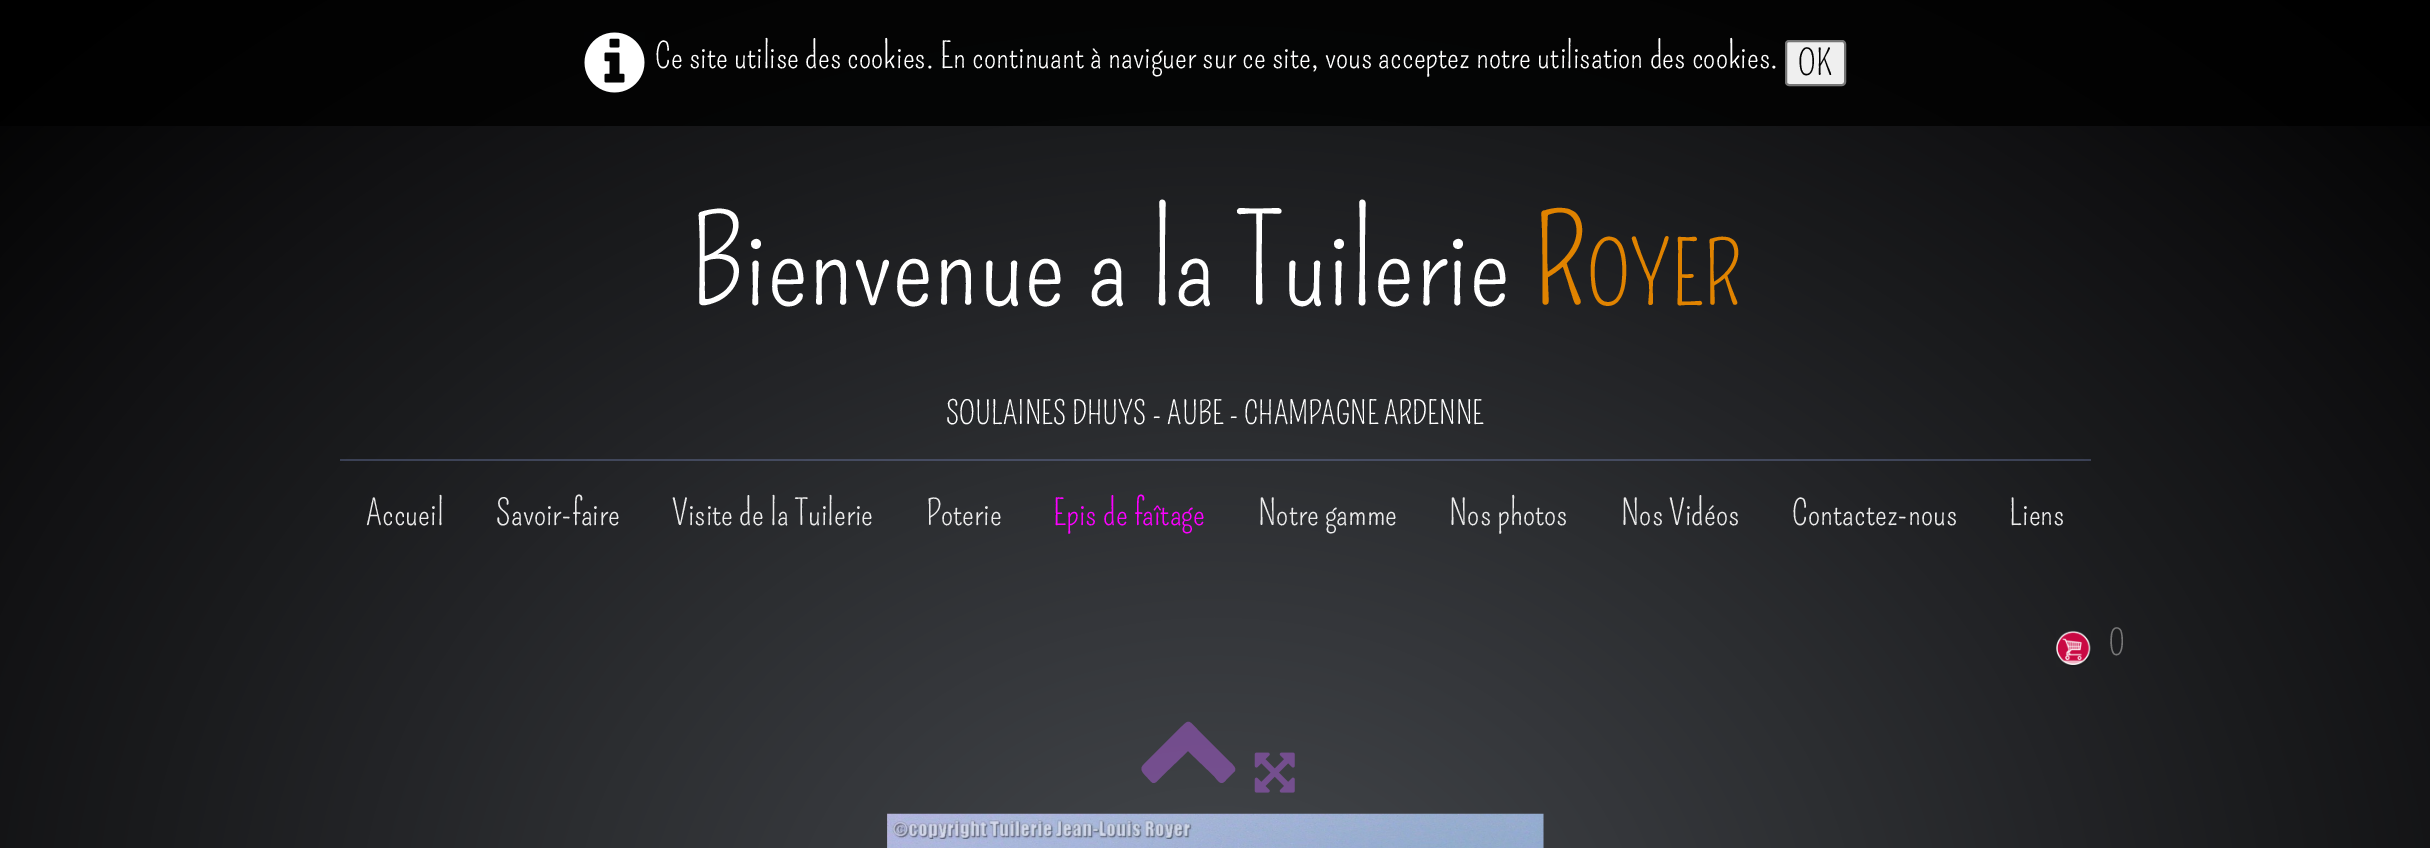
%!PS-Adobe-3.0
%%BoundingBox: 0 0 2430 848
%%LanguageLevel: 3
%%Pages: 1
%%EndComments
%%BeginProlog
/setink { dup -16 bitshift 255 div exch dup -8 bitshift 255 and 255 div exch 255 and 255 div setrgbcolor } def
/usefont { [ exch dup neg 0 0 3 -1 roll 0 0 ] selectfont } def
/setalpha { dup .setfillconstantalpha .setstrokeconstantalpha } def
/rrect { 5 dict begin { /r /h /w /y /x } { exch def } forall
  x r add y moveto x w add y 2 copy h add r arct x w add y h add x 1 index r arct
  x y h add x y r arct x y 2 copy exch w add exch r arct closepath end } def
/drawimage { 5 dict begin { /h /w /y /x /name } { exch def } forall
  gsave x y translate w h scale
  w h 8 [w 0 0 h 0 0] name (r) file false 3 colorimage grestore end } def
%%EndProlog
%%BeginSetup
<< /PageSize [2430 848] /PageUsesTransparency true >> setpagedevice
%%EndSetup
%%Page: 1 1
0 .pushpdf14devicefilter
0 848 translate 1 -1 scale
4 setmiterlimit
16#FFFFFF setink
0 0 2430 848 rectfill
gsave 0 126 moveto 2430 126 lineto 2430 848 lineto 0 848 lineto closepath clip newpath 1215 956 translate 1719 1353 scale
<< /ShadingType 3 /ColorSpace /DeviceRGB /Coords [0 0 0 0 0 1] /Extend [true true] /Function << /FunctionType 2 /Domain [0 1] /C0 [0.275 0.286 0.306] /C1 [0 0 0] /N 1 >> >> shfill grestore
gsave 0 0 moveto 2430 0 lineto 2430 126 lineto 0 126 lineto closepath clip newpath 1215 956 translate 1719 1353 scale
<< /ShadingType 3 /ColorSpace /DeviceRGB /Coords [0 0 0 0 0 1] /Extend [true true] /Function << /FunctionType 2 /Domain [0 1] /C0 [0.055 0.059 0.063] /C1 [0 0 0] /N 1 >> >> shfill grestore
gsave 340 459 moveto 2091 459 lineto 2091 461 lineto 340 461 lineto closepath clip newpath 1215 956 translate 1719 1353 scale
<< /ShadingType 3 /ColorSpace /DeviceRGB /Coords [0 0 0 0 0 1] /Extend [true true] /Function << /FunctionType 2 /Domain [0 1] /C0 [0.361 0.388 0.478] /C1 [0.153 0.173 0.247] /N 1 >> >> shfill grestore
(img1.raw) 584 32 61 61 drawimage
/Pompiere-Regular 35 usefont
655 68 moveto (Ce site utilise des cookies. En continuant à naviguer sur ce site, vous acceptez notre utilisation des cookies.) show
16#EFEFEF setink
1786 41 59 44 3 rrect gsave fill grestore
16#767676 setink
2 setlinewidth
stroke
16#000000 setink
1798 75 moveto (OK) show
/Pompiere-Regular 122.5 usefont
16#FFFFFF setink
690 305 moveto (Bienvenue a la Tuilerie) show
16#E08300 setink
1532 305 moveto (R) show
/Pompiere-Regular 86 usefont
1587 305 moveto (OYER) show
/Pompiere-Regular 31.5 usefont
16#FFFFFF setink
946 424 moveto (SOULAINES DHUYS - AUBE - CHAMPAGNE ARDENNE) show
/Pompiere-Regular 35 usefont
16#EBEBEB setink
[
    [(Accueil) 366 525]
    [(Savoir-faire) 496 525]
    [(Visite de la Tuilerie) 672 525]
    [(Poterie) 926 525]
] { aload pop moveto show } forall
16#FB00FF setink
1053 525 moveto (Epis de faîtage) show
16#EBEBEB setink
[
    [(Notre gamme) 1258 525]
    [(Nos photos) 1449 525]
    [(Nos Vidéos) 1621 525]
    [(Contactez-nous) 1792 525]
    [(Liens) 2009 525]
] { aload pop moveto show } forall
(img2.raw) 2056 630 35 37 drawimage
16#777777 setink
2108 655 moveto (0) show
0.4 setalpha
16#C966FF setink
1234 772 moveto 1226 780 lineto 1221 786 1219 782 1214 776 curveto 1188 751 lineto 1162 776 lineto 1152 787 1154 784 1144 774 curveto 1138 767 1144 765 1149 759 curveto 1178 730 lineto 1190 719 1187 719 1198 730 curveto 1227 759 lineto 1228 761 1239 768 1234 772 curveto closepath fill
1 setalpha
(img3.raw) 1254 752 41 41 drawimage
(img4.raw) 887 813 657 35 drawimage
.poppdf14devicefilter showpage
%%EOF
